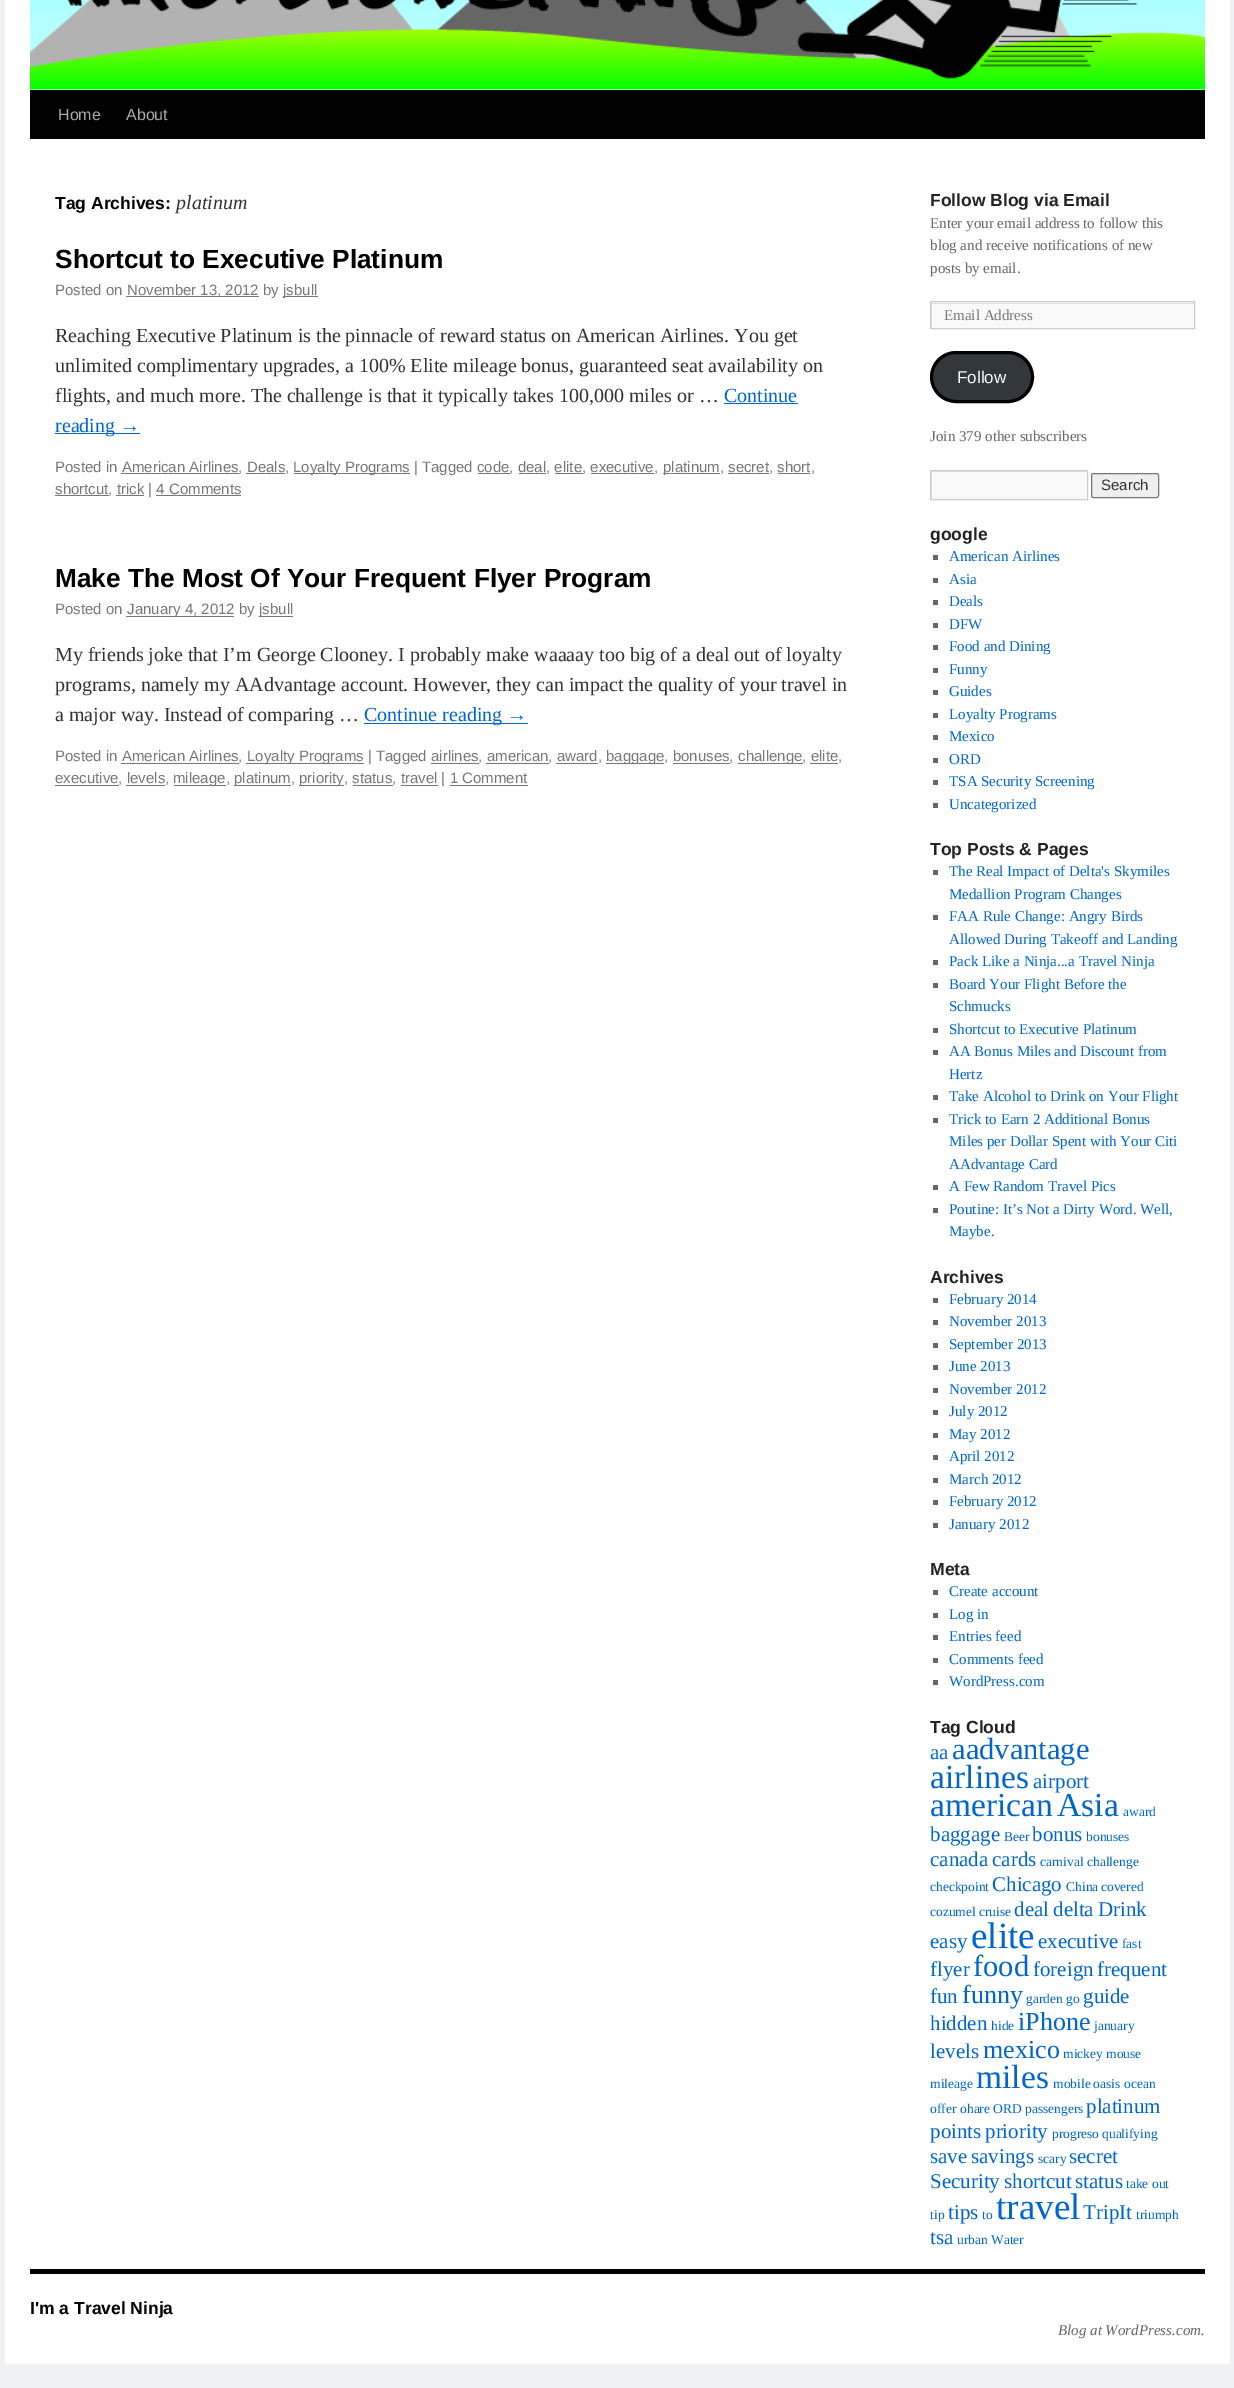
%!PS-Adobe-3.0
%%BoundingBox: 0 0 1234 2388
%%LanguageLevel: 3
%%Pages: 1
%%EndComments
%%BeginProlog
/setink { dup -16 bitshift 255 div exch dup -8 bitshift 255 and 255 div exch 255 and 255 div setrgbcolor } def
/usefont { [ exch dup neg 0 0 3 -1 roll 0 0 ] selectfont } def
/rrect { 5 dict begin { /r /h /w /y /x } { exch def } forall
  x r add y moveto x w add y 2 copy h add r arct x w add y h add x 1 index r arct
  x y h add x y r arct x y 2 copy exch w add exch r arct closepath end } def
/drawimage { 5 dict begin { /h /w /y /x /name } { exch def } forall
  gsave x y translate w h scale
  w h 8 [w 0 0 h 0 0] name (r) file false 3 colorimage grestore end } def
%%EndProlog
%%BeginSetup
<< /PageSize [1234 2388] >> setpagedevice
%%EndSetup
%%Page: 1 1
0 2388 translate 1 -1 scale
4 setmiterlimit
16#F0F1F3 setink
0 0 1234 2388 rectfill
16#FFFFFF setink
5 0 1225 2364 rectfill
16#000000 setink
30 90 1175 49 rectfill
(img1.raw) 30 0 1175 90 drawimage
/LiberationSans-Regular 16 usefont
16#AAAAAA setink
58 120 moveto (Home) show
126 120 moveto (About) show
/LiberationSans-Bold 17.5 usefont
16#000000 setink
55 209 moveto (Tag Archives:) show
/LiberationSerif-Italic 20 usefont
16#333333 setink
176 209 moveto (platinum) show
/LiberationSans-Bold 26.25 usefont
16#000000 setink
55 268 moveto (Shortcut to Executive Platinum) show
/LiberationSans-Regular 15 usefont
16#777777 setink
55 295 moveto (Posted on) show
126 296 133 1 rectfill
127 295 moveto (November 13, 2012 by) show
283 296 35 1 rectfill
283 295 moveto (jsbull) show
/LiberationSerif-Regular 20 usefont
16#333333 setink
[
    [(Reaching Executive Platinum is the pinnacle of reward status on American Airlines. You get) 55 342]
    [(unlimited complimentary upgrades, a 100% Elite mileage bonus, guaranteed seat availability on) 55 372]
    [(flights, and much more. The challenge is that it typically takes 100,000 miles or …) 55 402]
] { aload pop moveto show } forall
16#0066CC setink
724 402 moveto (Continue) show
724 403 74 1 rectfill
55 433 85 1 rectfill
55 432 moveto (reading →) show
/LiberationSans-Regular 15 usefont
16#777777 setink
55 472 moveto (Posted in American Airlines, Deals,) show
[
    [121 473 118 1 16#777777]
    [246 473 39 1 16#777777]
    [294 473 116 1 16#777777]
] { aload pop setink rectfill } forall
293 472 moveto (Loyalty Programs | Tagged code, deal, elite, executive,) show
663 473 57 1 rectfill
663 472 moveto (platinum, secret, short,) show
[
    [478 473 32 1 16#777777]
    [519 473 27 1 16#777777]
    [555 473 28 1 16#777777]
    [591 473 63 1 16#777777]
    [728 473 41 1 16#777777]
    [778 473 32 1 16#777777]
    [55 495 54 1 16#777777]
] { aload pop setink rectfill } forall
55 494 moveto (shortcut, trick | 4 Comments) show
116 495 28 1 rectfill
156 495 85 1 rectfill
/LiberationSans-Bold 26.25 usefont
16#000000 setink
55 587 moveto (Make The Most Of Your Frequent Flyer Program) show
/LiberationSans-Regular 15 usefont
16#777777 setink
55 614 moveto (Posted on) show
126 616 108 1 rectfill
127 614 moveto (January 4, 2012 by) show
259 616 34 1 rectfill
259 614 moveto (jsbull) show
/LiberationSerif-Regular 20 usefont
16#333333 setink
[
    [(My friends joke that I’m George Clooney. I probably make waaaay too big of a deal out of loyalty) 55 661]
    [(programs, namely my AAdvantage account. However, they can impact the quality of your travel in) 55 691]
    [(a major way. Instead of comparing …) 55 721]
] { aload pop moveto show } forall
16#0066CC setink
364 723 164 1 rectfill
364 721 moveto (Continue reading →) show
/LiberationSans-Regular 15 usefont
16#777777 setink
55 761 moveto (Posted in American Airlines,) show
121 763 118 1 rectfill
246 763 118 1 rectfill
247 761 moveto (Loyalty Programs | Tagged airlines, american, award,) show
606 763 58 1 rectfill
606 761 moveto (baggage, bonuses,) show
[
    [556 763 42 1 16#777777]
    [673 763 57 1 16#777777]
    [738 763 65 1 16#777777]
] { aload pop setink rectfill } forall
738 761 moveto (challenge, elite,) show
810 763 28 1 rectfill
55 783 moveto (executive, levels,) show
[
    [55 785 64 1 16#777777]
    [126 785 39 1 16#777777]
    [174 785 52 1 16#777777]
] { aload pop setink rectfill } forall
173 783 moveto (mileage,) show
234 785 57 1 rectfill
234 783 moveto (platinum,) show
299 785 45 1 rectfill
299 783 moveto (priority, status, travel | 1 Comment) show
[
    [431 763 48 1 16#777777]
    [486 763 63 1 16#777777]
    [353 785 40 1 16#777777]
    [401 785 37 1 16#777777]
    [450 785 78 1 16#777777]
] { aload pop setink rectfill } forall
/LiberationSans-Bold 17.5 usefont
16#222222 setink
930 206 moveto (Follow Blog via Email) show
/LiberationSerif-Regular 15 usefont
16#666666 setink
[
    [(Enter your email address to follow this) 930 228]
    [(blog and receive notifications of new) 930 250]
    [(posts by email.) 930 273]
] { aload pop moveto show } forall
16#F9F9F9 setink
931 302 263 26 rectfill
gsave
931 303 263 25 rectclip
16#E0E0E0 setink
808 179 moveto 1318 179 lineto 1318 451 lineto 808 451 lineto closepath 932 304 moveto 1195 304 lineto 1195 329 lineto 932 329 lineto closepath eofill
grestore
16#CCCCCC setink
930.5 301.5 264 27 rectstroke
16#777777 setink
944 320 moveto (Email Address) show
16#32373C setink
931.5 352.5 101 49 24.5 rrect gsave fill grestore
16#000000 setink
3 setlinewidth
stroke
/LiberationSans-Regular 17 usefont
16#FFFFFF setink
957 383 moveto (Follow) show
/LiberationSerif-Regular 15 usefont
16#666666 setink
930 441 moveto (Join 379 other subscribers) show
16#F9F9F9 setink
932 471 155 28 rectfill
gsave
931 471 155 28 rectclip
16#E0E0E0 setink
808 348 moveto 1210 348 lineto 1210 622 lineto 808 622 lineto closepath 932 472 moveto 1088 472 lineto 1088 500 lineto 932 500 lineto closepath eofill
grestore
16#CCCCCC setink
1 setlinewidth
930.5 470.5 157 29 rectstroke
16#EFEFEF setink
1091.5 473.5 67 24 2 rrect gsave fill grestore
16#767676 setink
stroke
/LiberationSans-Regular 15 usefont
16#333333 setink
1101 490 moveto (Search) show
/LiberationSans-Bold 17.5 usefont
16#222222 setink
930 540 moveto (google) show
16#666666 setink
933 555 5 5 rectfill
/LiberationSerif-Regular 15 usefont
16#0066CC setink
949 561 moveto (American Airlines) show
16#666666 setink
933 578 5 5 rectfill
16#0066CC setink
949 584 moveto (Asia) show
16#666666 setink
933 600 5 5 rectfill
16#0066CC setink
949 606 moveto (Deals) show
16#666666 setink
933 623 5 5 rectfill
16#0066CC setink
949 629 moveto (DFW) show
16#666666 setink
933 645 5 5 rectfill
16#0066CC setink
949 651 moveto (Food and Dining) show
16#666666 setink
933 668 5 5 rectfill
16#0066CC setink
949 674 moveto (Funny) show
16#666666 setink
933 690 5 5 rectfill
16#0066CC setink
949 696 moveto (Guides) show
16#666666 setink
933 713 5 5 rectfill
16#0066CC setink
949 719 moveto (Loyalty Programs) show
16#666666 setink
933 735 5 5 rectfill
16#0066CC setink
949 741 moveto (Mexico) show
16#666666 setink
933 758 5 5 rectfill
16#0066CC setink
949 764 moveto (ORD) show
16#666666 setink
933 780 5 5 rectfill
16#0066CC setink
949 786 moveto (TSA Security Screening) show
16#666666 setink
933 803 5 5 rectfill
16#0066CC setink
949 809 moveto (Uncategorized) show
/LiberationSans-Bold 17.5 usefont
16#222222 setink
930 855 moveto (Top Posts & Pages) show
16#666666 setink
933 870 5 5 rectfill
/LiberationSerif-Regular 15 usefont
16#0066CC setink
949 876 moveto (The Real Impact of Delta's Skymiles) show
949 899 moveto (Medallion Program Changes) show
16#666666 setink
933 915 5 5 rectfill
16#0066CC setink
949 921 moveto (FAA Rule Change: Angry Birds) show
949 944 moveto (Allowed During Takeoff and Landing) show
16#666666 setink
933 960 5 5 rectfill
16#0066CC setink
949 966 moveto (Pack Like a Ninja...a Travel Ninja) show
16#666666 setink
933 983 5 5 rectfill
16#0066CC setink
949 989 moveto (Board Your Flight Before the) show
949 1011 moveto (Schmucks) show
16#666666 setink
933 1028 5 5 rectfill
16#0066CC setink
949 1034 moveto (Shortcut to Executive Platinum) show
16#666666 setink
933 1050 5 5 rectfill
16#0066CC setink
949 1056 moveto (AA Bonus Miles and Discount from) show
949 1079 moveto (Hertz) show
16#666666 setink
933 1095 5 5 rectfill
16#0066CC setink
949 1101 moveto (Take Alcohol to Drink on Your Flight) show
16#666666 setink
933 1118 5 5 rectfill
16#0066CC setink
[
    [(Trick to Earn 2 Additional Bonus) 949 1124]
    [(Miles per Dollar Spent with Your Citi) 949 1146]
    [(AAdvantage Card) 949 1169]
] { aload pop moveto show } forall
16#666666 setink
933 1185 5 5 rectfill
16#0066CC setink
949 1191 moveto (A Few Random Travel Pics) show
16#666666 setink
933 1208 5 5 rectfill
16#0066CC setink
949 1214 moveto (Poutine: It’s Not a Dirty Word. Well,) show
949 1236 moveto (Maybe.) show
/LiberationSans-Bold 17.5 usefont
16#222222 setink
930 1283 moveto (Archives) show
16#666666 setink
933 1298 5 5 rectfill
/LiberationSerif-Regular 15 usefont
16#0066CC setink
949 1304 moveto (February 2014) show
16#666666 setink
933 1320 5 5 rectfill
16#0066CC setink
949 1326 moveto (November 2013) show
16#666666 setink
933 1343 5 5 rectfill
16#0066CC setink
949 1349 moveto (September 2013) show
16#666666 setink
933 1365 5 5 rectfill
16#0066CC setink
949 1371 moveto (June 2013) show
16#666666 setink
933 1388 5 5 rectfill
16#0066CC setink
949 1394 moveto (November 2012) show
16#666666 setink
933 1410 5 5 rectfill
16#0066CC setink
949 1416 moveto (July 2012) show
16#666666 setink
933 1433 5 5 rectfill
16#0066CC setink
949 1439 moveto (May 2012) show
16#666666 setink
933 1455 5 5 rectfill
16#0066CC setink
949 1461 moveto (April 2012) show
16#666666 setink
933 1478 5 5 rectfill
16#0066CC setink
949 1484 moveto (March 2012) show
16#666666 setink
933 1500 5 5 rectfill
16#0066CC setink
949 1506 moveto (February 2012) show
16#666666 setink
933 1523 5 5 rectfill
16#0066CC setink
949 1529 moveto (January 2012) show
/LiberationSans-Bold 17.5 usefont
16#222222 setink
930 1575 moveto (Meta) show
16#666666 setink
933 1590 5 5 rectfill
/LiberationSerif-Regular 15 usefont
16#0066CC setink
949 1596 moveto (Create account) show
16#666666 setink
933 1613 5 5 rectfill
16#0066CC setink
949 1619 moveto (Log in) show
16#666666 setink
933 1635 5 5 rectfill
16#0066CC setink
949 1641 moveto (Entries feed) show
16#666666 setink
933 1658 5 5 rectfill
16#0066CC setink
949 1664 moveto (Comments feed) show
16#666666 setink
933 1680 5 5 rectfill
16#0066CC setink
949 1686 moveto (WordPress.com) show
/LiberationSans-Bold 17.5 usefont
16#222222 setink
930 1733 moveto (Tag Cloud) show
/LiberationSerif-Regular 21 usefont
16#0066CC setink
930 1759 moveto (aa) show
/LiberationSerif-Regular 30.5 usefont
952 1759 moveto (aadvantage) show
/LiberationSerif-Regular 33.5 usefont
930 1788 moveto (airlines) show
/LiberationSerif-Regular 21 usefont
1033 1788 moveto (airport) show
/LiberationSerif-Regular 33.5 usefont
930 1816 moveto (american) show
1057 1816 moveto (Asia) show
/LiberationSerif-Regular 13.5 usefont
1123 1816 moveto (award) show
/LiberationSerif-Regular 21 usefont
930 1841 moveto (baggage) show
/LiberationSerif-Regular 13.5 usefont
1004 1841 moveto (Beer) show
/LiberationSerif-Regular 21 usefont
1032 1841 moveto (bonus) show
/LiberationSerif-Regular 13.5 usefont
1086 1841 moveto (bonuses) show
/LiberationSerif-Regular 21 usefont
930 1866 moveto (canada) show
992 1866 moveto (cards) show
/LiberationSerif-Regular 13.5 usefont
[
    [(carnival) 1040 1866]
    [(challenge) 1087 1866]
    [(checkpoint) 930 1891]
] { aload pop moveto show } forall
/LiberationSerif-Regular 21 usefont
992 1891 moveto (Chicago) show
/LiberationSerif-Regular 13.5 usefont
[
    [(China) 1066 1891]
    [(covered) 1101 1891]
    [(cozumel) 930 1916]
    [(cruise) 979 1916]
] { aload pop moveto show } forall
/LiberationSerif-Regular 21 usefont
[
    [(deal) 1014 1916]
    [(delta) 1053 1916]
    [(Drink) 1098 1916]
    [(easy) 930 1948]
] { aload pop moveto show } forall
/LiberationSerif-Regular 37 usefont
971 1948 moveto (elite) show
/LiberationSerif-Regular 21 usefont
1038 1948 moveto (executive) show
/LiberationSerif-Regular 13.5 usefont
1122 1948 moveto (fast) show
/LiberationSerif-Regular 21 usefont
930 1976 moveto (flyer) show
/LiberationSerif-Regular 30.5 usefont
973 1976 moveto (food) show
/LiberationSerif-Regular 21 usefont
[
    [(foreign) 1033 1976]
    [(frequent) 1097 1976]
    [(fun) 930 2003]
] { aload pop moveto show } forall
/LiberationSerif-Regular 26 usefont
962 2003 moveto (funny) show
/LiberationSerif-Regular 13.5 usefont
1026 2003 moveto (garden) show
1066 2003 moveto (go) show
/LiberationSerif-Regular 21 usefont
1083 2003 moveto (guide) show
930 2030 moveto (hidden) show
/LiberationSerif-Regular 13.5 usefont
991 2030 moveto (hide) show
/LiberationSerif-Regular 26 usefont
1018 2030 moveto (iPhone) show
/LiberationSerif-Regular 13.5 usefont
1094 2030 moveto (january) show
/LiberationSerif-Regular 21 usefont
930 2058 moveto (levels) show
/LiberationSerif-Regular 26 usefont
983 2058 moveto (mexico) show
/LiberationSerif-Regular 13.5 usefont
1063 2058 moveto (mickey mouse) show
930 2088 moveto (mileage) show
/LiberationSerif-Regular 33.5 usefont
976 2088 moveto (miles) show
/LiberationSerif-Regular 13.5 usefont
[
    [(mobile) 1053 2088]
    [(oasis) 1093 2088]
    [(ocean) 1124 2088]
    [(offer) 930 2113]
    [(ohare) 960 2113]
    [(ORD) 993 2113]
    [(passengers) 1025 2113]
] { aload pop moveto show } forall
/LiberationSerif-Regular 21 usefont
[
    [(platinum) 1086 2113]
    [(points) 930 2138]
    [(priority) 985 2138]
] { aload pop moveto show } forall
/LiberationSerif-Regular 13.5 usefont
1052 2138 moveto (progreso) show
1102 2138 moveto (qualifying) show
/LiberationSerif-Regular 21 usefont
930 2163 moveto (save) show
971 2163 moveto (savings) show
/LiberationSerif-Regular 13.5 usefont
1038 2163 moveto (scary) show
/LiberationSerif-Regular 21 usefont
[
    [(secret) 1069 2163]
    [(Security) 930 2188]
    [(shortcut) 1004 2188]
    [(status) 1075 2188]
] { aload pop moveto show } forall
/LiberationSerif-Regular 13.5 usefont
1126 2188 moveto (take out) show
930 2219 moveto (tip) show
/LiberationSerif-Regular 21 usefont
948 2219 moveto (tips) show
/LiberationSerif-Regular 13.5 usefont
982 2219 moveto (to) show
/LiberationSerif-Regular 37 usefont
996 2219 moveto (travel) show
/LiberationSerif-Regular 21 usefont
1083 2219 moveto (TripIt) show
/LiberationSerif-Regular 13.5 usefont
1136 2219 moveto (triumph) show
/LiberationSerif-Regular 21 usefont
930 2244 moveto (tsa) show
/LiberationSerif-Regular 13.5 usefont
957 2244 moveto (urban) show
991 2244 moveto (Water) show
16#000000 setink
30 2269 1175 5 rectfill
/LiberationSans-Bold 17.5 usefont
30 2314 moveto (I'm a Travel Ninja) show
/LiberationSerif-Italic 15 usefont
16#666666 setink
1058 2335 moveto (Blog at WordPress.com.) show
showpage
%%EOF
